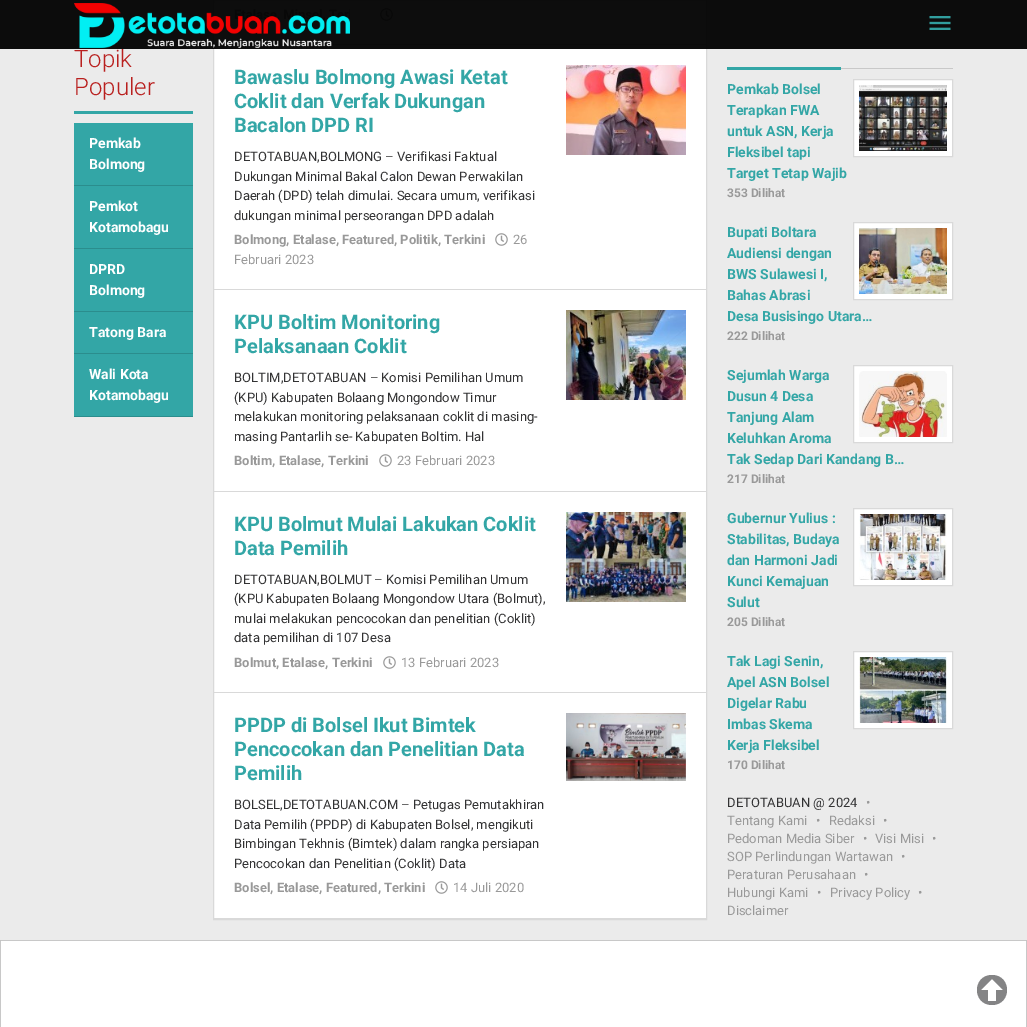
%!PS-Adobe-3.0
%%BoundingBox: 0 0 1027 1027
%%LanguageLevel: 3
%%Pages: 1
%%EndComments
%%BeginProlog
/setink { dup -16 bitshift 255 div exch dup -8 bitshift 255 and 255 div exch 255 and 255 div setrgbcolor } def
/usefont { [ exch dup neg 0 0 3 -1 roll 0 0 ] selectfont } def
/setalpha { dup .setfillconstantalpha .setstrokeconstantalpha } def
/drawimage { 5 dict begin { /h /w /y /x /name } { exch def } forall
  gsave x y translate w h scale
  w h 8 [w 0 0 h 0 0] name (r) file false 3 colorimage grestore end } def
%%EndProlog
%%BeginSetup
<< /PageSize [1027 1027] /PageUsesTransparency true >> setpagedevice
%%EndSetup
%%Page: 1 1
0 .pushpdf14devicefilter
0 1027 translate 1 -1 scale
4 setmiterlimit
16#EBEBEB setink
0 0 1027 1027 rectfill
16#FFFFFF setink
214 0 492 918 rectfill
16#D9D9D9 setink
213.5 -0.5 493 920 rectstroke
214 44 492 1 rectfill
(img3.raw) 380 8 13 13 drawimage
0.95 setalpha
16#000000 setink
0 0 1027 49 rectfill
1 setalpha
(img1.raw) 74 3 276 45 drawimage
(img2.raw) 929 16 22 14 drawimage
16#33A6A6 setink
74 111 119 3 rectfill
/Roboto-Light 24 usefont
16#B9201F setink
74 67 moveto (Topik) show
74 95 moveto (Populer) show
16#33A6A6 setink
74 123 119 293 rectfill
16#2B8D8D setink
74 185 119 1 rectfill
/Roboto-Bold 14 usefont
16#FFFFFF setink
89 148 moveto (Pemkab) show
89 169 moveto (Bolmong) show
16#2B8D8D setink
74 248 119 1 rectfill
16#FFFFFF setink
89 211 moveto (Pemkot) show
89 232 moveto (Kotamobagu) show
16#2B8D8D setink
74 311 119 1 rectfill
16#FFFFFF setink
89 274 moveto (DPRD) show
89 295 moveto (Bolmong) show
16#2B8D8D setink
74 353 119 1 rectfill
16#FFFFFF setink
89 337 moveto (Tatong Bara) show
16#2B8D8D setink
74 416 119 1 rectfill
16#FFFFFF setink
89 379 moveto (Wali Kota) show
89 400 moveto (Kotamobagu) show
16#D9D9D9 setink
214 289 492 1 rectfill
/Roboto-Bold 20 usefont
16#33A6A6 setink
[
    [(Bawaslu Bolmong Awasi Ketat) 234 84]
    [(Coklit dan Verfak Dukungan) 234 108]
    [(Bacalon DPD RI) 234 132]
] { aload pop moveto show } forall
/Roboto-Regular 13 usefont
16#323233 setink
[
    [(DETOTABUAN,BOLMONG – Verifikasi Faktual) 234 161]
    [(Dukungan Minimal Bakal Calon Dewan Perwakilan) 234 181]
    [(Daerah \(DPD\) telah dimulai. Secara umum, verifikasi) 234 200]
    [(dukungan minimal perseorangan DPD adalah) 234 220]
] { aload pop moveto show } forall
/Roboto-Bold 13 usefont
16#999999 setink
234 244 moveto (Bolmong, Etalase, Featured, Politik, Terkini) show
(img3.raw) 495 233 13 13 drawimage
/Roboto-Regular 13 usefont
513 244 moveto (26) show
234 264 moveto (Februari 2023) show
(img4.raw) 566 65 120 90 drawimage
16#D9D9D9 setink
214 491 492 1 rectfill
/Roboto-Bold 20 usefont
16#33A6A6 setink
234 329 moveto (KPU Boltim Monitoring) show
234 353 moveto (Pelaksanaan Coklit) show
/Roboto-Regular 13 usefont
16#323233 setink
[
    [(BOLTIM,DETOTABUAN – Komisi Pemilihan Umum) 234 382]
    [(\(KPU\) Kabupaten Bolaang Mongondow Timur) 234 402]
    [(melakukan monitoring pelaksanaan coklit di masing-) 234 421]
    [(masing Pantarlih se- Kabupaten Boltim. Hal) 234 441]
] { aload pop moveto show } forall
/Roboto-Bold 13 usefont
16#999999 setink
234 465 moveto (Boltim, Etalase, Terkini) show
(img3.raw) 379 454 13 13 drawimage
/Roboto-Regular 13 usefont
397 465 moveto (23 Februari 2023) show
(img5.raw) 566 310 120 90 drawimage
16#D9D9D9 setink
214 692 492 1 rectfill
/Roboto-Bold 20 usefont
16#33A6A6 setink
234 531 moveto (KPU Bolmut Mulai Lakukan Coklit) show
234 555 moveto (Data Pemilih) show
/Roboto-Regular 13 usefont
16#323233 setink
[
    [(DETOTABUAN,BOLMUT – Komisi Pemilihan Umum) 234 584]
    [(\(KPU Kabupaten Bolaang Mongondow Utara \(Bolmut\),) 234 603]
    [(mulai melakukan pencocokan dan penelitian \(Coklit\)) 234 623]
    [(data pemilihan di 107 Desa) 234 642]
] { aload pop moveto show } forall
/Roboto-Bold 13 usefont
16#999999 setink
234 667 moveto (Bolmut, Etalase, Terkini) show
(img3.raw) 383 656 13 13 drawimage
/Roboto-Regular 13 usefont
401 667 moveto (13 Februari 2023) show
(img6.raw) 566 512 120 90 drawimage
16#D9D9D9 setink
214 918 492 1 rectfill
/Roboto-Bold 20 usefont
16#33A6A6 setink
[
    [(PPDP di Bolsel Ikut Bimtek) 234 732]
    [(Pencocokan dan Penelitian Data) 234 756]
    [(Pemilih) 234 780]
] { aload pop moveto show } forall
/Roboto-Regular 13 usefont
16#323233 setink
[
    [(BOLSEL,DETOTABUAN.COM – Petugas Pemutakhiran) 234 809]
    [(Data Pemilih \(PPDP\) di Kabupaten Bolsel, mengikuti) 234 829]
    [(Bimbingan Tekhnis \(Bimtek\) dalam rangka persiapan) 234 848]
    [(Pencocokan dan Penelitian \(Coklit\) Data) 234 868]
] { aload pop moveto show } forall
/Roboto-Bold 13 usefont
16#999999 setink
234 892 moveto (Bolsel, Etalase, Featured, Terkini) show
(img3.raw) 435 881 13 13 drawimage
/Roboto-Regular 13 usefont
453 892 moveto (14 Juli 2020) show
(img7.raw) 566 713 120 68 drawimage
16#C8C8C8 setink
841 68 112 1 rectfill
16#33A6A6 setink
727 67 114 3 rectfill
/Roboto-Bold 14 usefont
727 94 moveto (Pemkab Bolsel) show
16#FFFFFF setink
853.5 79.5 moveto 952.5 79.5 lineto 952.5 156.5 lineto 853.5 156.5 lineto closepath gsave fill grestore
16#D9D9D9 setink
stroke
(img8.raw) 859 85 88 66 drawimage
16#33A6A6 setink
[
    [(Terapkan FWA) 727 115]
    [(untuk ASN, Kerja) 727 136]
    [(Fleksibel tapi) 727 157]
    [(Target Tetap Wajib) 727 178]
] { aload pop moveto show } forall
/Roboto-Bold 12 usefont
16#999999 setink
727 197 moveto (353 Dilihat) show
/Roboto-Bold 14 usefont
16#33A6A6 setink
727 237 moveto (Bupati Boltara) show
16#FFFFFF setink
853.5 222.5 moveto 952.5 222.5 lineto 952.5 299.5 lineto 853.5 299.5 lineto closepath gsave fill grestore
16#D9D9D9 setink
stroke
(img9.raw) 859 228 88 66 drawimage
16#33A6A6 setink
[
    [(Audiensi dengan) 727 258]
    [(BWS Sulawesi I,) 727 279]
    [(Bahas Abrasi) 727 300]
    [(Desa Busisingo Utara…) 727 321]
] { aload pop moveto show } forall
/Roboto-Bold 12 usefont
16#999999 setink
727 340 moveto (222 Dilihat) show
/Roboto-Bold 14 usefont
16#33A6A6 setink
727 380 moveto (Sejumlah Warga) show
16#FFFFFF setink
853.5 365.5 moveto 952.5 365.5 lineto 952.5 442.5 lineto 853.5 442.5 lineto closepath gsave fill grestore
16#D9D9D9 setink
stroke
(img10.raw) 859 371 88 66 drawimage
16#33A6A6 setink
[
    [(Dusun 4 Desa) 727 401]
    [(Tanjung Alam) 727 422]
    [(Keluhkan Aroma) 727 443]
    [(Tak Sedap Dari Kandang B…) 727 464]
] { aload pop moveto show } forall
/Roboto-Bold 12 usefont
16#999999 setink
727 483 moveto (217 Dilihat) show
/Roboto-Bold 14 usefont
16#33A6A6 setink
727 523 moveto (Gubernur Yulius :) show
16#FFFFFF setink
853.5 508.5 moveto 952.5 508.5 lineto 952.5 585.5 lineto 853.5 585.5 lineto closepath gsave fill grestore
16#D9D9D9 setink
stroke
(img11.raw) 859 514 88 66 drawimage
16#33A6A6 setink
[
    [(Stabilitas, Budaya) 727 544]
    [(dan Harmoni Jadi) 727 565]
    [(Kunci Kemajuan) 727 586]
    [(Sulut) 727 607]
] { aload pop moveto show } forall
/Roboto-Bold 12 usefont
16#999999 setink
727 626 moveto (205 Dilihat) show
/Roboto-Bold 14 usefont
16#33A6A6 setink
727 666 moveto (Tak Lagi Senin,) show
16#FFFFFF setink
853.5 651.5 moveto 952.5 651.5 lineto 952.5 728.5 lineto 853.5 728.5 lineto closepath gsave fill grestore
16#D9D9D9 setink
stroke
(img12.raw) 859 657 88 66 drawimage
16#33A6A6 setink
[
    [(Apel ASN Bolsel) 727 687]
    [(Digelar Rabu) 727 708]
    [(Imbas Skema) 727 729]
    [(Kerja Fleksibel) 727 750]
] { aload pop moveto show } forall
/Roboto-Bold 12 usefont
16#999999 setink
727 769 moveto (170 Dilihat) show
/Roboto-Regular 13 usefont
16#323233 setink
727 807 moveto (DETOTABUAN @ 2024) show
16#999999 setink
[
    [(•) 866 807]
    [(Tentang Kami) 727 825]
    [(•) 816 825]
    [(Redaksi) 829 825]
    [(•) 883 825]
    [(Pedoman Media Siber) 727 843]
    [(•) 863 843]
    [(Visi Misi) 875 843]
    [(•) 932 843]
    [(SOP Perlindungan Wartawan) 727 861]
    [(•) 901 861]
    [(Peraturan Perusahaan) 727 879]
    [(•) 864 879]
    [(Hubungi Kami) 727 897]
    [(•) 817 897]
    [(Privacy Policy) 830 897]
    [(•) 918 897]
    [(Disclaimer) 727 915]
] { aload pop moveto show } forall
16#C8C8C8 setink
0 940 moveto 1027 940 lineto 1026 941 lineto 1 941 lineto closepath fill
0.15 setalpha
16#000000 setink
1027 940 moveto 1027 1027 lineto 1026 1027 lineto 1026 941 lineto closepath fill
0 1027 moveto 0 940 lineto 1 941 lineto 1 1027 lineto closepath fill
1 setalpha
16#FFFFFF setink
1 941 1025 86 rectfill
16#848485 setink
992 975 moveto 972 975 972 1005 992 1005 curveto 1012 1005 1012 975 992 975 curveto closepath 992 979 moveto 1003 990 lineto 996 990 lineto 996 1001 lineto 988 1001 lineto 988 990 lineto 981 990 lineto closepath fill
.poppdf14devicefilter showpage
%%EOF
